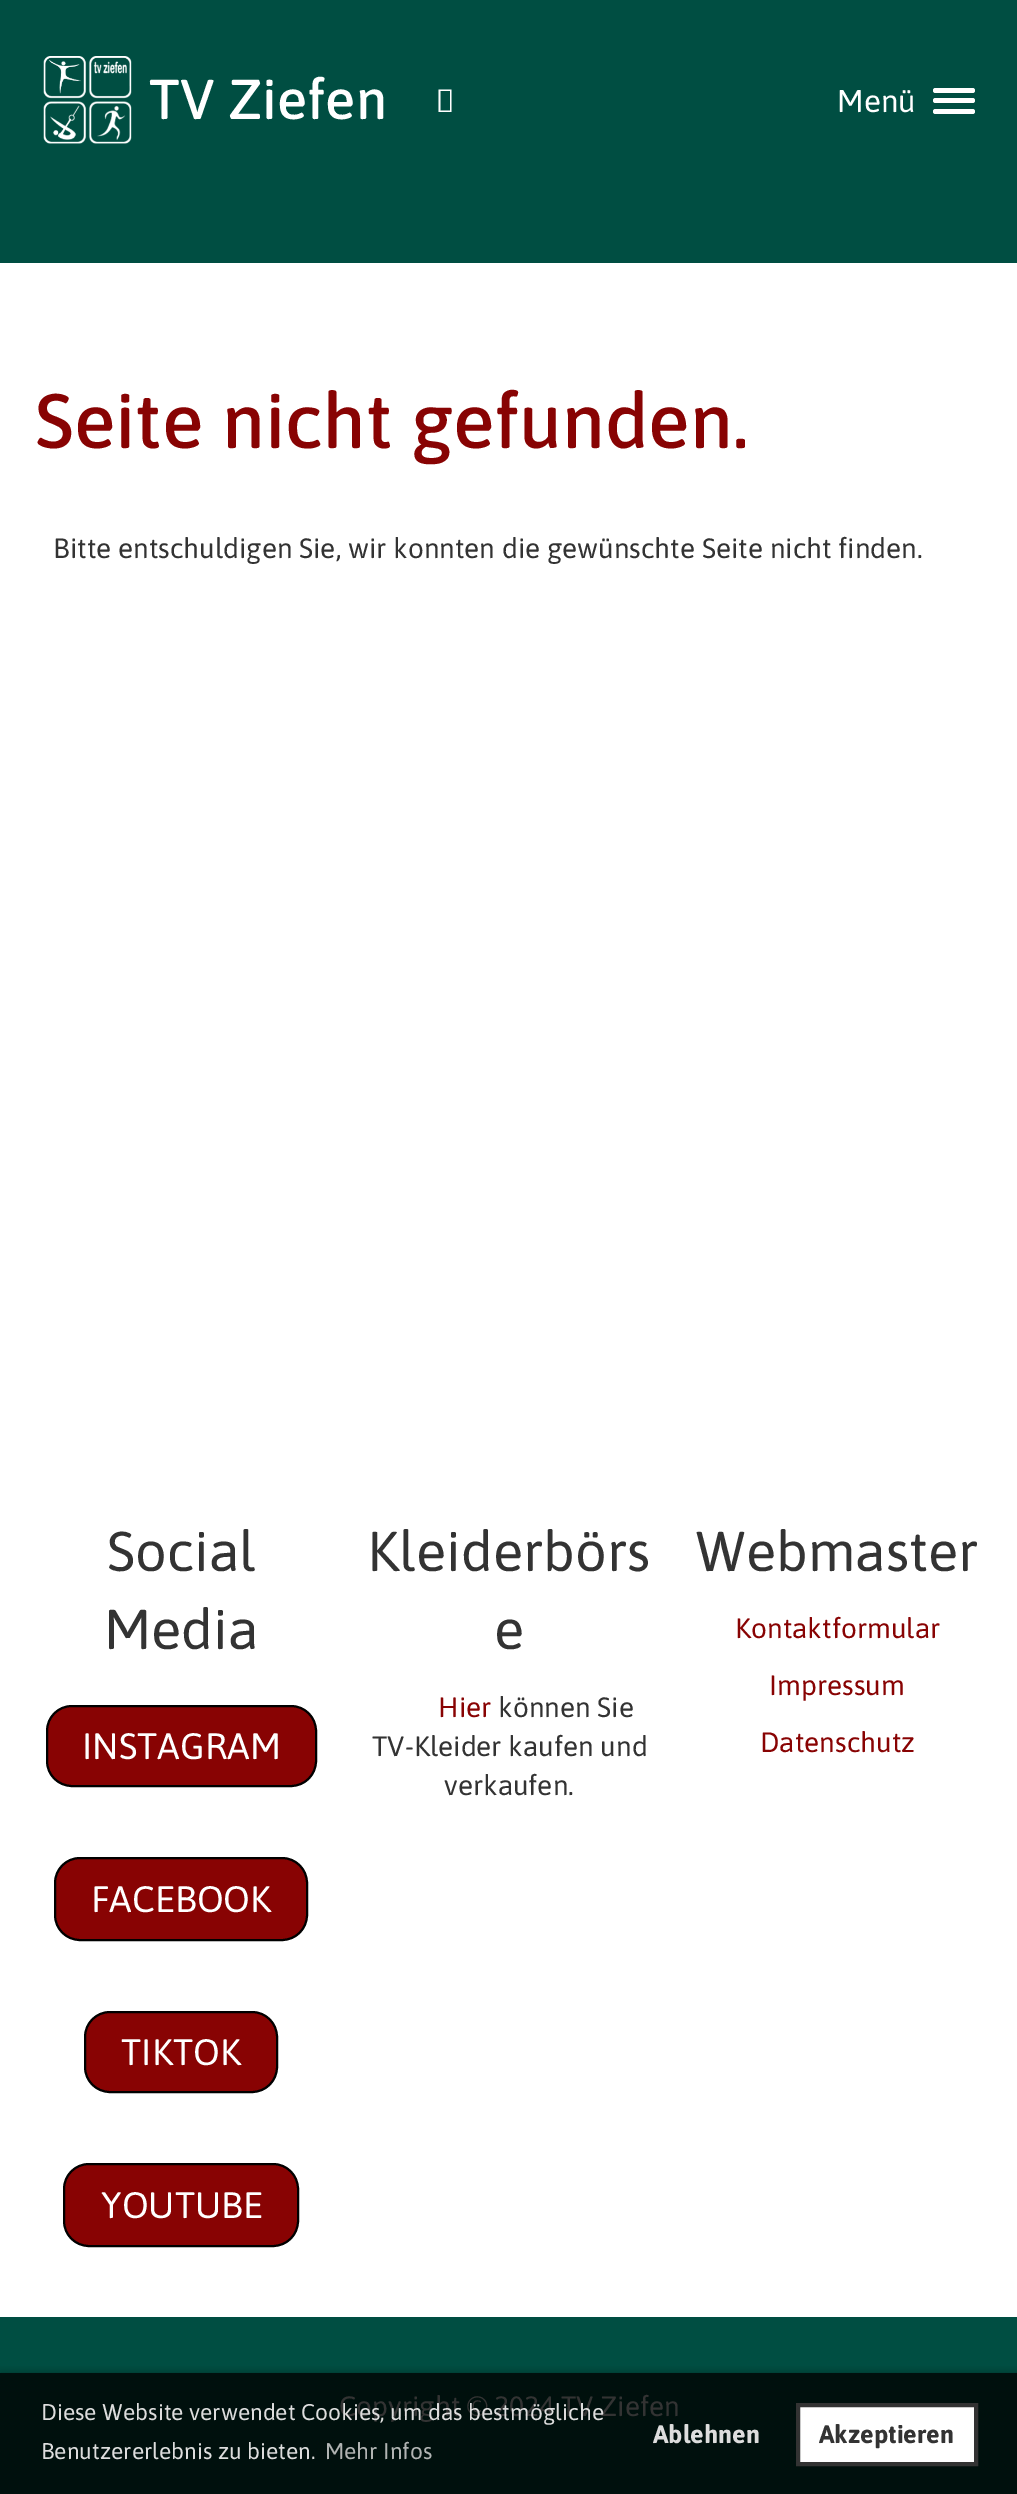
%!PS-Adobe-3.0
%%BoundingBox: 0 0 1017 2494
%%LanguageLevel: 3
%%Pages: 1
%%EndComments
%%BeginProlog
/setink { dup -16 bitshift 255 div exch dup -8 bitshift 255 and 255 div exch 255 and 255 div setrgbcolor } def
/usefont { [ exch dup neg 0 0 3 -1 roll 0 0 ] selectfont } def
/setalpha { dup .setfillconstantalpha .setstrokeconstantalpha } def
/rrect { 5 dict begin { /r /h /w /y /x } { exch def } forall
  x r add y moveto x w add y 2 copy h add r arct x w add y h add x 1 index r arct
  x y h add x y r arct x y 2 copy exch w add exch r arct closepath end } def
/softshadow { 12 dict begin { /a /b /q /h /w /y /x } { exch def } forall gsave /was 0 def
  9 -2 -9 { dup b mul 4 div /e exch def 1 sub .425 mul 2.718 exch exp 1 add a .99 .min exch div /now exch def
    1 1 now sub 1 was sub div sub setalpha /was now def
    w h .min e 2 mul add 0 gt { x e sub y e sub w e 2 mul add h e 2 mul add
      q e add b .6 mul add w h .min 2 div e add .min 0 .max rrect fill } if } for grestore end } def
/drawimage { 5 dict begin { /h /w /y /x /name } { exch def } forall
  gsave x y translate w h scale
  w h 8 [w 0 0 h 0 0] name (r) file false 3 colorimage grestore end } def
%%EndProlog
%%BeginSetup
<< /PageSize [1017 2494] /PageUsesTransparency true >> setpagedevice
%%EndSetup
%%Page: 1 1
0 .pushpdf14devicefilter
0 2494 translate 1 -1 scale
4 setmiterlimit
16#FFFFFF setink
0 0 1017 2494 rectfill
16#004E42 setink
0 0 1017 263 rectfill
(img1.raw) 43 56 89 88 drawimage
/AsapMedium-Medium 56 usefont
16#FFFFFF setink
149 119 moveto (TV Ziefen) show
438.5 112 moveto 438.5 89.5 lineto 451.5 89.5 lineto 451.5 112 lineto closepath 440.5 110.5 moveto 450 110.5 lineto 450 91 lineto 440.5 91 lineto closepath fill
/Asap-Regular 31.5 usefont
837 112 moveto (Menü) show
933 88 42 5 2.5 rrect fill
933 98 42 5 2.5 rrect fill
933 109 42 5 2.5 rrect fill
/AsapMedium-Medium 77 usefont
16#880303 setink
35 448 moveto (Seite nicht gefunden.) show
/Asap-Regular 28 usefont
16#333333 setink
53 558 moveto (Bitte entschuldigen Sie, wir konnten die gewünschte Seite nicht finden.) show
/Asap-Regular 56 usefont
107 1571 moveto (Social) show
104 1649 moveto (Media) show
16#880303 setink
47 1706 269 80 25 rrect gsave fill grestore
16#000000 setink
2 setlinewidth
stroke
/Asap-Regular 36.75 usefont
16#FFFFFF setink
82 1759 moveto (INSTAGRAM) show
16#880303 setink
55 1858 252 82 25 rrect gsave fill grestore
16#000000 setink
stroke
16#FFFFFF setink
91 1912 moveto (FACEBOOK) show
16#880303 setink
85 2012 192 80 25 rrect gsave fill grestore
16#000000 setink
stroke
16#FFFFFF setink
121 2065 moveto (TIKTOK) show
16#880303 setink
64 2164 234 82 25 rrect gsave fill grestore
16#000000 setink
stroke
16#FFFFFF setink
101 2218 moveto (YOUTUBE) show
/Asap-Regular 56 usefont
16#333333 setink
367 1571 moveto (Kleiderbörs) show
494 1649 moveto (e) show
/Asap-Regular 28 usefont
16#880303 setink
438 1717 moveto (Hier) show
16#333333 setink
[
    [(können Sie) 498 1717]
    [(TV-Kleider kaufen und) 372 1756]
    [(verkaufen.) 444 1795]
] { aload pop moveto show } forall
/Asap-Regular 56 usefont
695 1571 moveto (Webmaster) show
/Asap-Regular 28 usefont
16#880303 setink
[
    [(Kontaktformular) 735 1638]
    [(Impressum) 769 1695]
    [(Datenschutz) 760 1752]
] { aload pop moveto show } forall
16#004E42 setink
0 2317 1017 56 rectfill
16#00100D setink
0 2373 1017 121 rectfill
16#333333 setink
339 2416 moveto (Copyright © 2024 TV Ziefen) show
gsave
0 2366 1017 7 rectclip
16#000000 setink
0 2373 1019 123 0 4.5 0.3 softshadow
grestore
/Asap-Regular 22.75 usefont
16#DDDDDD setink
41 2420 moveto (Diese Website verwendet Cookies, um das bestmögliche) show
41 2459 moveto (Benutzererlebnis zu bieten.) show
16#B1B4B3 setink
325 2459 moveto (Mehr Infos) show
/Asap-Bold 25.25 usefont
16#DDDDDD setink
653 2443 moveto (Ablehnen) show
16#FFFFFF setink
798 2405 moveto 976 2405 lineto 976 2464 lineto 798 2464 lineto closepath gsave fill grestore
16#333333 setink
4 setlinewidth
stroke
819 2443 moveto (Akzeptieren) show
.poppdf14devicefilter showpage
%%EOF
